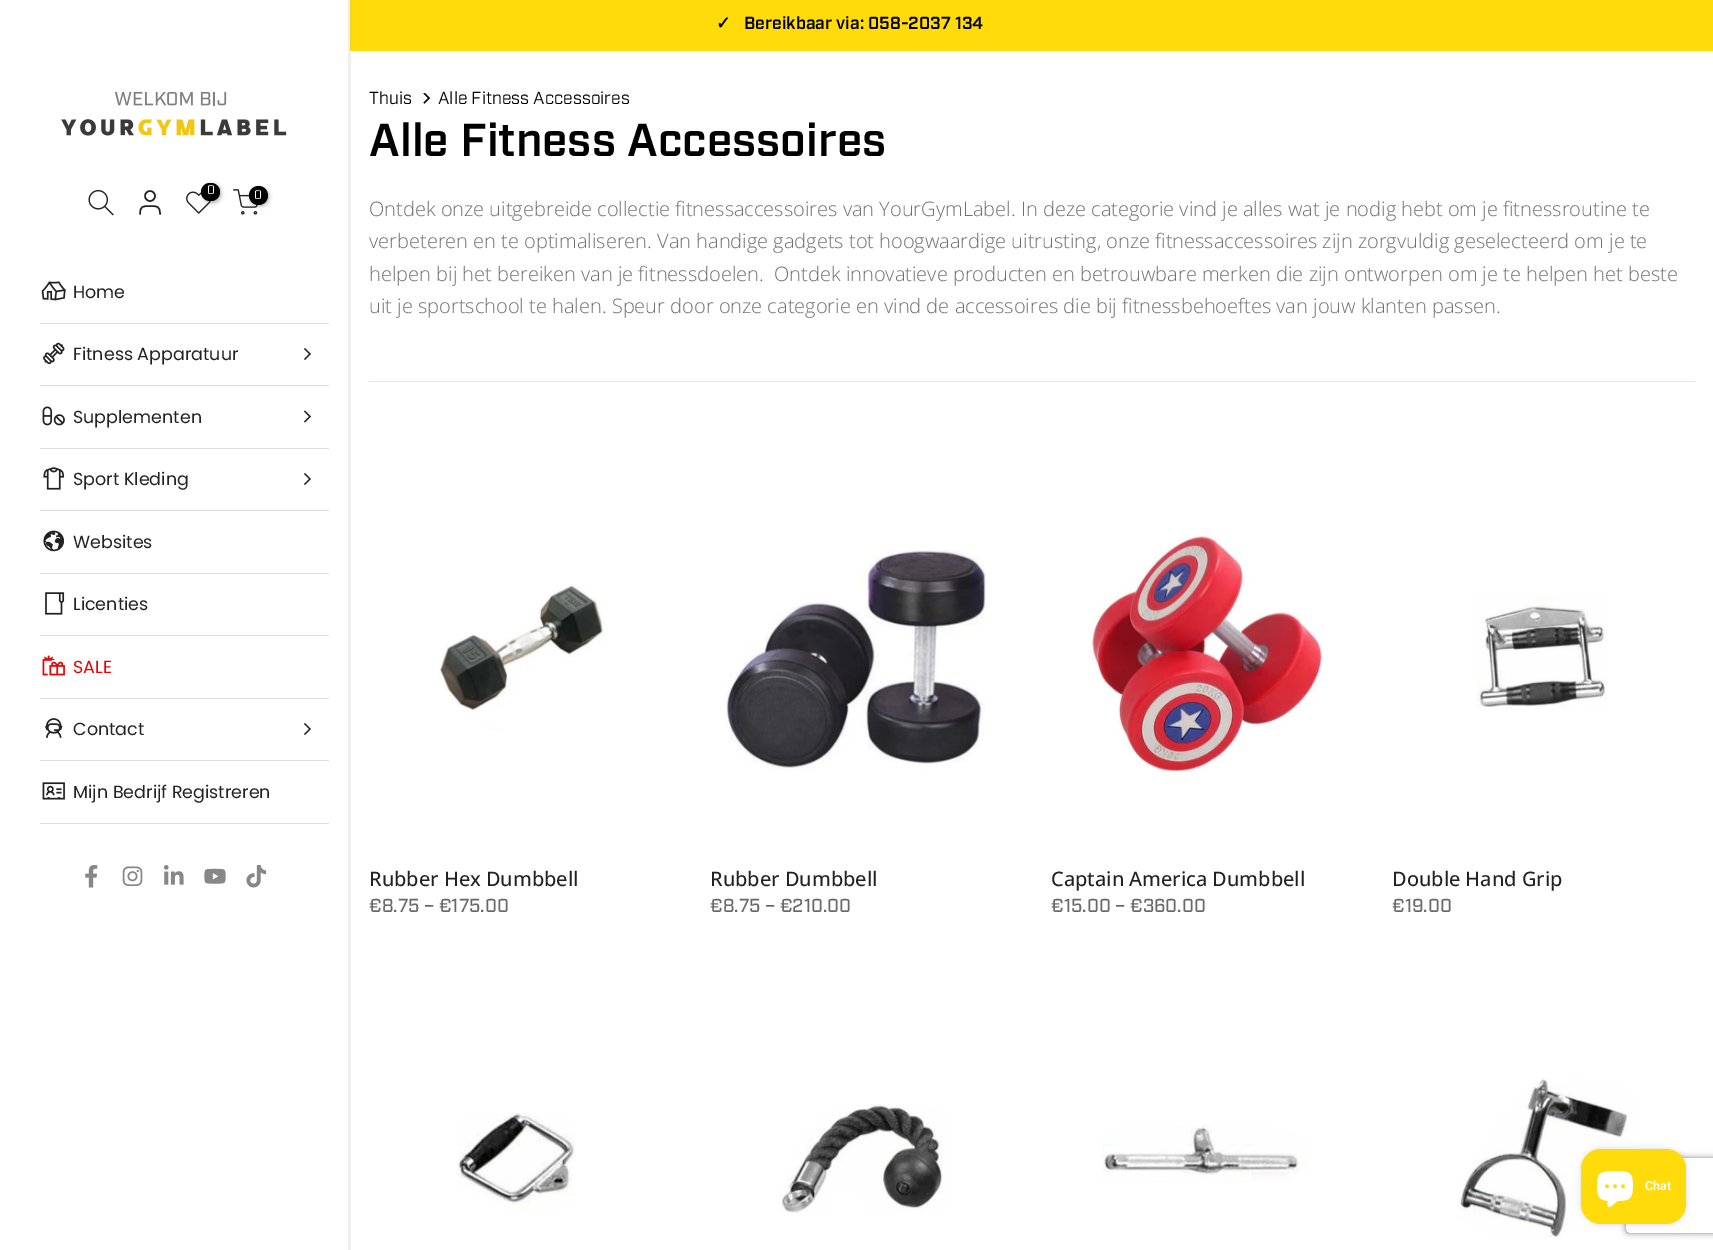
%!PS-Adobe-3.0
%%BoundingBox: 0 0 1713 1250
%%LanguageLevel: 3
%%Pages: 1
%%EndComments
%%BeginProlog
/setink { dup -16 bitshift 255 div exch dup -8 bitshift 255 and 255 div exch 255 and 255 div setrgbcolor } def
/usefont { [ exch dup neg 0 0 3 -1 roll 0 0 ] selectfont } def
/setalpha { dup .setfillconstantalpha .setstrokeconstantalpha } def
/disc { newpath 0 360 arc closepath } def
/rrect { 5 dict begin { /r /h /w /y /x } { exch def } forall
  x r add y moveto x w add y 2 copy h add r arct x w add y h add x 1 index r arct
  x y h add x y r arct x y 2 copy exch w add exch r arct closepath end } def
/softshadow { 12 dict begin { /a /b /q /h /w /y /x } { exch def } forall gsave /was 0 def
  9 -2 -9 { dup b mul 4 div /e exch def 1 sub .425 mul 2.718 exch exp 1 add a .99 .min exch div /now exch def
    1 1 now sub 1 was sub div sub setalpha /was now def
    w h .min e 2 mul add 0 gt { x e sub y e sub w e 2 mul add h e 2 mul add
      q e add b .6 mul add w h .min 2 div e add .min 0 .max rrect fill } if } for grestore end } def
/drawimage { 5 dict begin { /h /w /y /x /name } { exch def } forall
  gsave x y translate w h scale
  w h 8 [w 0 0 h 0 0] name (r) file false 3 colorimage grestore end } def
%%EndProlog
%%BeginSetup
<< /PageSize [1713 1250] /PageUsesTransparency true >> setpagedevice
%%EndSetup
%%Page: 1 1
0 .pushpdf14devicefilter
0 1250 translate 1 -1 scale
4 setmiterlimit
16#FFFFFF setink
0 0 1713 1250 rectfill
[
    [348 0 3 1250 16#EFEFEF]
    [351 0 1362 51 16#FFDB0B]
    [350 0 1 51 16#EFD120]
] { aload pop setink rectfill } forall
/DejaVuSans-Bold 17.5 usefont
16#000000 setink
716 29 moveto (✓) show
/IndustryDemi-SemiBold 17.5 usefont
744 29 moveto (Bereikbaar via: 058-2037 134) show
(img1.raw) 61 91 226 45 drawimage
(img2.raw) 88 189 26 27 drawimage
16#222222 setink
1.5 setlinewidth
150 196 5 disc stroke
1 setlinecap
1 setlinejoin
160 214 moveto 160 206 157 206 150 206 curveto 143 206 140 206 140 214 curveto stroke
(img3.raw) 186 191 26 23 drawimage
16#000000 setink
203 184 18 19 9 2 0.3 softshadow
201 183 19 18 9 rrect fill
/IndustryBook-Regular 12.5 usefont
16#FFFFFF setink
207 194 moveto (0) show
(img4.raw) 233 189 25 26 drawimage
16#000000 setink
250 188 19 18 9 2 0.3 softshadow
258.5 195.5 9.5 disc fill
16#FFFFFF setink
254 199 moveto (0) show
16#DEDEDE setink
40 323 289 1 rectfill
(img5.raw) 41 281 25 20 drawimage
/Poppins-Regular 17.5 usefont
16#222222 setink
73 298 moveto (Home) show
16#DEDEDE setink
40 385 289 1 rectfill
(img6.raw) 43 342 22 23 drawimage
16#222222 setink
73 360 moveto (Fitness Apparatuur) show
1.3 setlinewidth
2 setlinecap
0 setlinejoin
305 349 moveto 310 354 lineto 305 359 lineto stroke
16#DEDEDE setink
40 448 289 1 rectfill
(img7.raw) 42 406 23 20 drawimage
16#222222 setink
73 423 moveto (Supplementen) show
305 411.5 moveto 310 416.5 lineto 305 421.5 lineto stroke
16#DEDEDE setink
40 510 289 1 rectfill
(img8.raw) 43 467 22 23 drawimage
16#222222 setink
73 485 moveto (Sport Kleding) show
305 474 moveto 310 479 lineto 305 484 lineto stroke
16#DEDEDE setink
40 573 289 1 rectfill
(img9.raw) 43 530 22 22 drawimage
16#222222 setink
73 548 moveto (Websites) show
16#DEDEDE setink
40 635 289 1 rectfill
(img10.raw) 45 592 20 23 drawimage
16#222222 setink
73 610 moveto (Licenties) show
16#DEDEDE setink
40 698 289 1 rectfill
(img11.raw) 42 655 23 21 drawimage
16#EC0101 setink
73 673 moveto (SALE) show
16#DEDEDE setink
40 760 289 1 rectfill
(img12.raw) 45 718 18 20 drawimage
16#222222 setink
73 735 moveto (Contact) show
305 724 moveto 310 729 lineto 305 734 lineto stroke
16#DEDEDE setink
40 823 289 1 rectfill
(img13.raw) 42 782 23 18 drawimage
16#222222 setink
73 798 moveto (Mijn Bedrijf Registreren) show
(img14.raw) 85 865 13 23 drawimage
(img15.raw) 122 866 21 20 drawimage
(img16.raw) 163 865 21 20 drawimage
(img17.raw) 204 868 22 16 drawimage
(img18.raw) 246 865 21 23 drawimage
/IndustryBook-Regular 17.5 usefont
16#000000 setink
369 104 moveto (Thuis) show
(img19.raw) 423 93 8 11 drawimage
438 104 moveto (Alle Fitness Accessoires) show
/IndustryDemi-SemiBold 46.25 usefont
369 156 moveto (Alle Fitness Accessoires) show
/OpenSans-Light 20 usefont
16#707070 setink
[
    [(Ontdek onze uitgebreide collectie fitnessaccessoires van YourGymLabel. In deze categorie vind je alles wat je nodig hebt om je fitnessroutine te) 369 216]
    [(verbeteren en te optimaliseren. Van handige gadgets tot hoogwaardige uitrusting, onze fitnessaccessoires zijn zorgvuldig geselecteerd om je te) 369 248]
    [(helpen bij het bereiken van je fitnessdoelen.  Ontdek innovatieve producten en betrouwbare merken die zijn ontworpen om je te helpen het beste) 369 281]
    [(uit je sportschool te halen. Speur door onze categorie en vind de accessoires die bij fitnessbehoeftes van jouw klanten passen.) 369 313]
] { aload pop moveto show } forall
16#E6E6E6 setink
369 381 1326 1 rectfill
(img20.raw) 439 584 165 146 drawimage
/OpenSans-Medium 20 usefont
16#222222 setink
369 886 moveto (Rubber Hex Dumbbell) show
/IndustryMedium-Medium 18.75 usefont
16#696969 setink
369 912 moveto (€8.75 – €175.00) show
(img21.raw) 725 550 261 219 drawimage
/OpenSans-Medium 20 usefont
16#222222 setink
710 886 moveto (Rubber Dumbbell) show
/IndustryMedium-Medium 18.75 usefont
16#696969 setink
710 912 moveto (€8.75 – €210.00) show
(img22.raw) 1089 533 234 242 drawimage
/OpenSans-Medium 20 usefont
16#222222 setink
1051 886 moveto (Captain America Dumbbell) show
/IndustryMedium-Medium 18.75 usefont
16#696969 setink
1051 912 moveto (€15.00 – €360.00) show
(img23.raw) 1477 595 130 114 drawimage
/OpenSans-Medium 20 usefont
16#222222 setink
1392 886 moveto (Double Hand Grip) show
/IndustryMedium-Medium 18.75 usefont
16#696969 setink
1392 912 moveto (€19.00) show
(img24.raw) 458 1113 117 99 drawimage
(img25.raw) 780 1104 165 109 drawimage
(img26.raw) 1102 1125 206 57 drawimage
(img27.raw) 1458 1077 176 161 drawimage
gsave
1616 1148 moveto 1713 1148 lineto 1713 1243 lineto 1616 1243 lineto closepath 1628.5 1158 moveto 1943.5 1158 lineto 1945 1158 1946 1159 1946 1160.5 curveto 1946 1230.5 lineto 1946 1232 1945 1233 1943.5 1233 curveto 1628.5 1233 lineto 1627 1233 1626 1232 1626 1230.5 curveto 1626 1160.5 lineto 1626 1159 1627 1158 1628.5 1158 curveto closepath eoclip newpath
16#808080 setink
1626 1158 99 75 2.5 3 1 softshadow
grestore
16#000000 setink
1581 1149 105 75 20 3 0.15 softshadow
16#FFDB0B setink
1581 1149 105 75 20 rrect fill
(img28.raw) 1597 1171 36 37 drawimage
/Roboto-SemiBold 12.5 usefont
16#FFFFFF setink
1645 1190 moveto (Chat) show
.poppdf14devicefilter showpage
%%EOF
